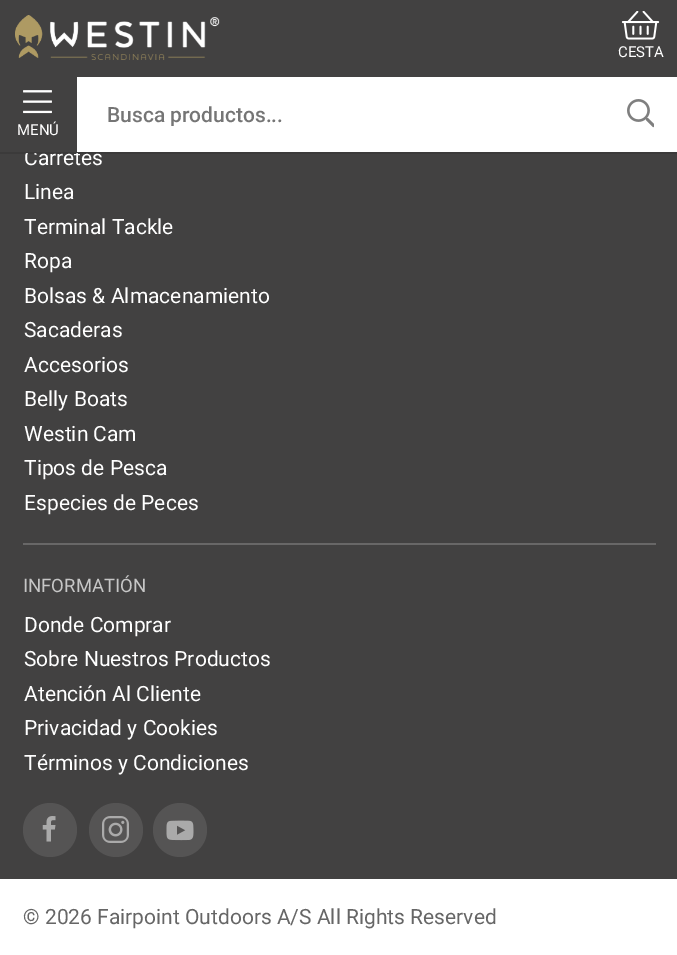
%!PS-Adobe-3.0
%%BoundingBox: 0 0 677 955
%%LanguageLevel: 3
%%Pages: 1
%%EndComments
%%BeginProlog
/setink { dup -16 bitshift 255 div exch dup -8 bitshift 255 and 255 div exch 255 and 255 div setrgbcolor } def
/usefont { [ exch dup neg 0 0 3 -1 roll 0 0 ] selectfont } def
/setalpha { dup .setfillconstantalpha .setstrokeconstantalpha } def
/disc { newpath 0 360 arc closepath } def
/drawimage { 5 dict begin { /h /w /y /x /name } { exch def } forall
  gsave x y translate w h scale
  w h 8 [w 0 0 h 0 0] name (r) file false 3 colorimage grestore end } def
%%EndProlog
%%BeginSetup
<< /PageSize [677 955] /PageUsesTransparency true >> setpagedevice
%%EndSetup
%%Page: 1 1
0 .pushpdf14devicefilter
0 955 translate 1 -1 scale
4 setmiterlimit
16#FFFFFF setink
0 0 677 955 rectfill
16#424141 setink
0 153 677 726 rectfill
/Roboto-Regular 21 usefont
16#FFFFFF setink
24 165 moveto (Carretes) show
16#424141 setink
0 0 677 153 rectfill
(img1.raw) 15 15 205 45 drawimage
(img2.raw) 621 11 39 29 drawimage
/Roboto-Regular 15 usefont
16#FFFFFF setink
618 57 moveto (CESTA) show
0.1 setalpha
16#000000 setink
0 152 677 2 rectfill
1 setalpha
16#FFFFFF setink
77 77 600 75 rectfill
gsave
107 102 493 24 rectclip
/Roboto-Medium 21 usefont
16#757575 setink
107 122 moveto (Busca productos...) show
grestore
(img3.raw) 627 99 27 29 drawimage
(img4.raw) 23 90 29 24 drawimage
17 135 moveto (MENÚ) show
/Roboto-Regular 21 usefont
[
    [(Linea) 24 199]
    [(Terminal Tackle) 24 234]
    [(Ropa) 24 268]
    [(Bolsas & Almacenamiento) 24 303]
    [(Sacaderas) 24 337]
    [(Accesorios) 24 372]
    [(Belly Boats) 24 406]
    [(Westin Cam) 24 441]
    [(Tipos de Pesca) 24 475]
    [(Especies de Peces) 24 510]
] { aload pop moveto show } forall
16#686767 setink
23 543 633 2 rectfill
/Roboto-Regular 18.5 usefont
16#C6C6C6 setink
23 592 moveto (INFORMATIÓN) show
/Roboto-Regular 21 usefont
16#FFFFFF setink
[
    [(Donde Comprar) 24 632]
    [(Sobre Nuestros Productos) 24 666]
    [(Atención Al Cliente) 24 701]
    [(Privacidad y Cookies) 24 735]
    [(Términos y Condiciones) 24 770]
] { aload pop moveto show } forall
16#555454 setink
50 830 27 disc fill
(img5.raw) 42 816 14 26 drawimage
116 830 27 disc fill
(img6.raw) 102 816 27 27 drawimage
180 830 27 disc fill
(img7.raw) 166 820 28 21 drawimage
16#666666 setink
23 924 moveto (© 2026 Fairpoint Outdoors A/S All Rights Reserved) show
.poppdf14devicefilter showpage
%%EOF
